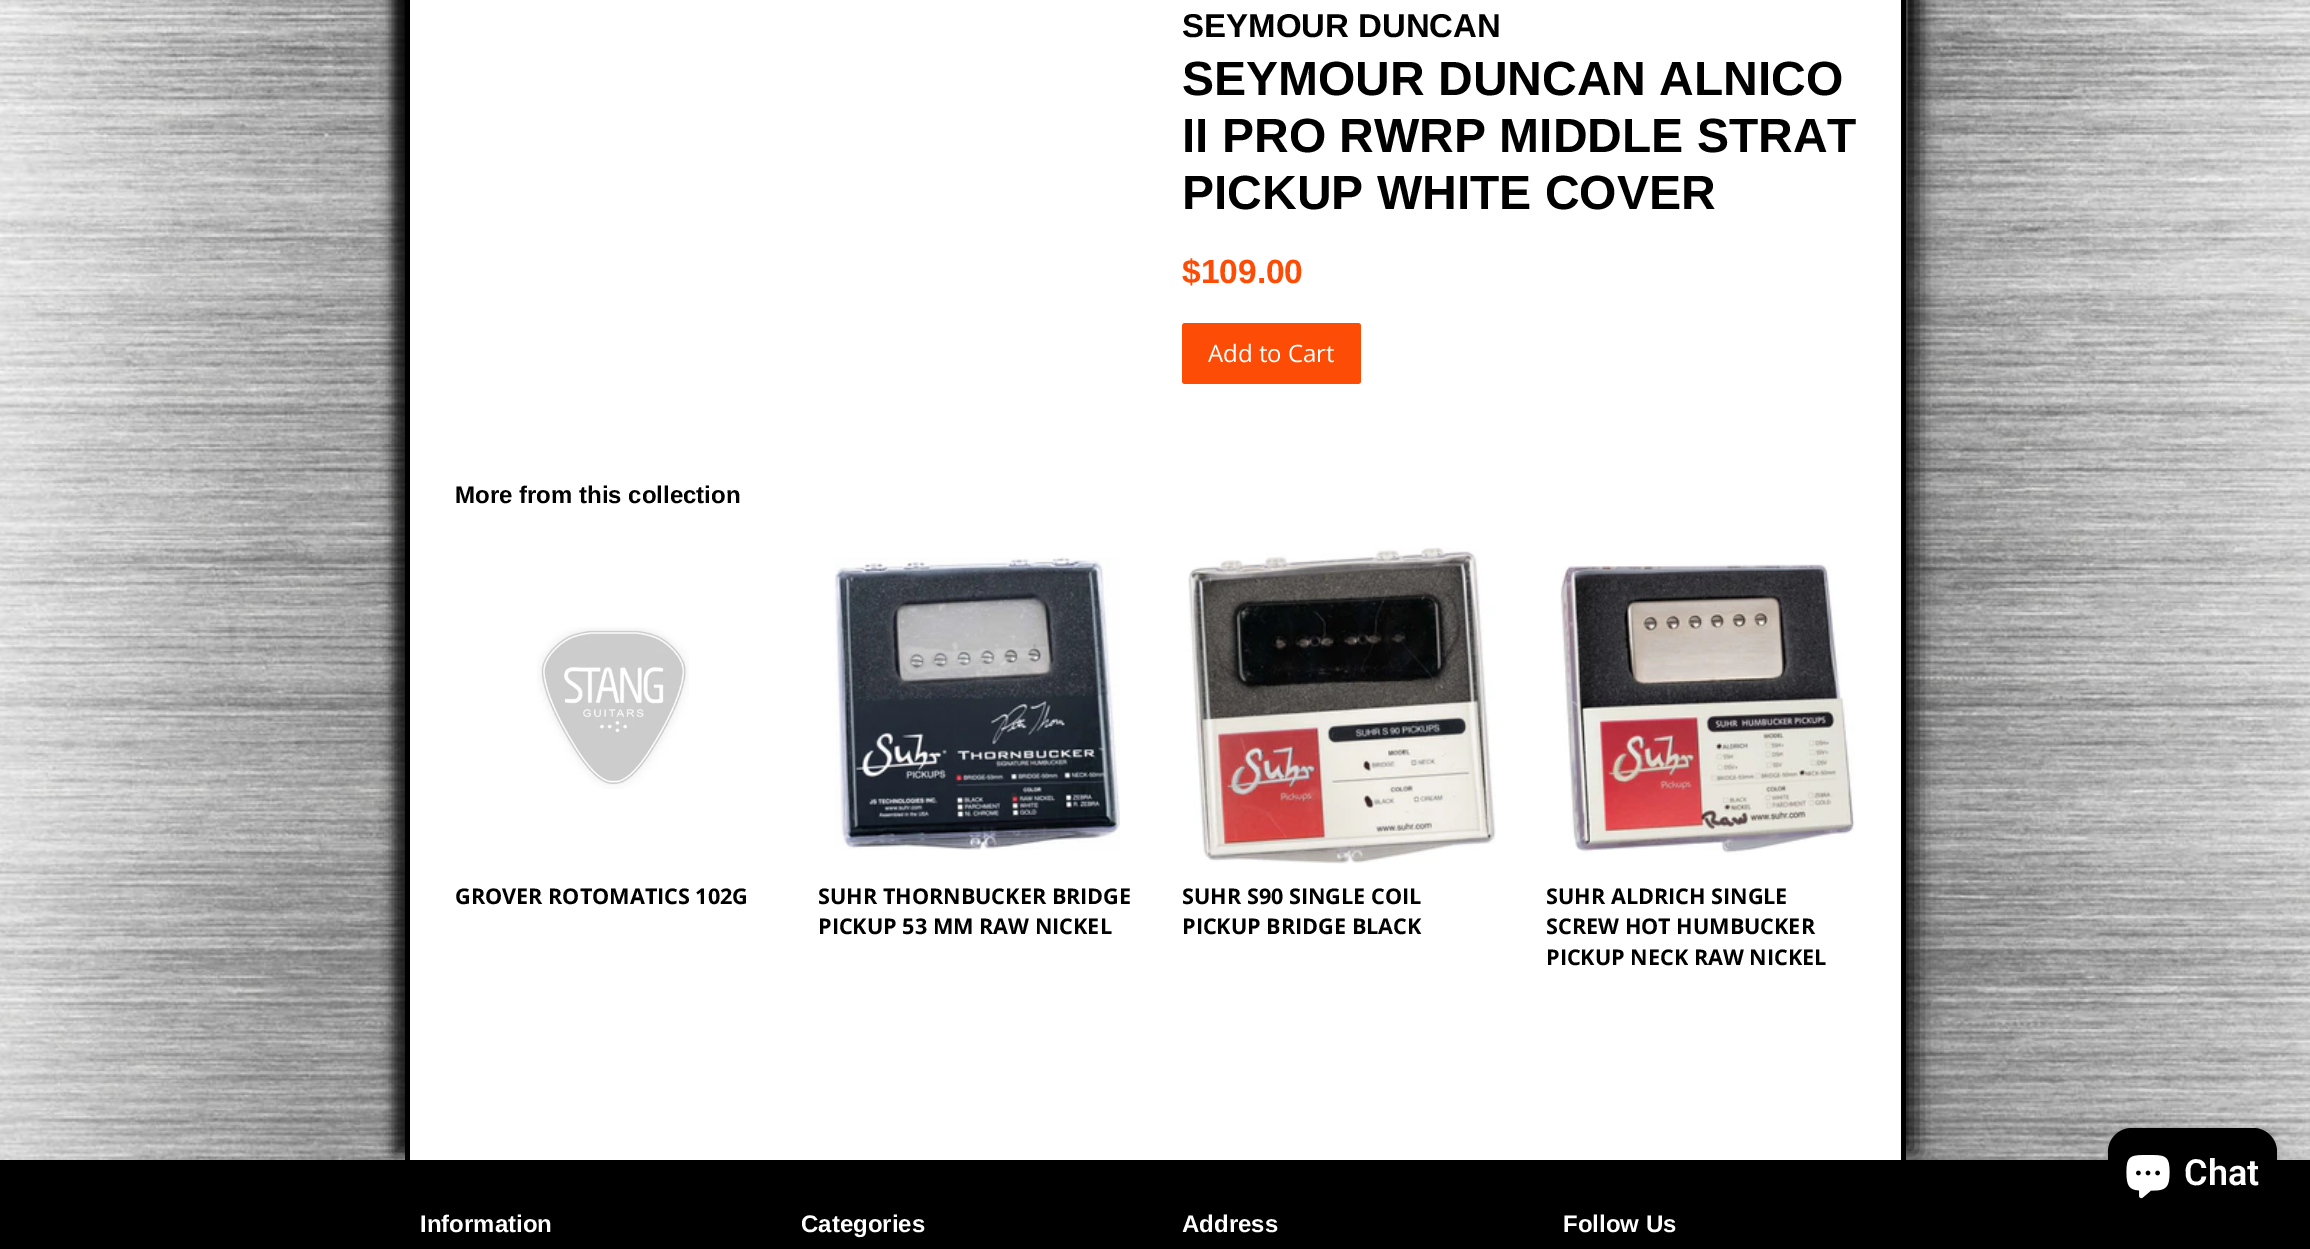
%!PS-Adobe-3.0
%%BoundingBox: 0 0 2310 1249
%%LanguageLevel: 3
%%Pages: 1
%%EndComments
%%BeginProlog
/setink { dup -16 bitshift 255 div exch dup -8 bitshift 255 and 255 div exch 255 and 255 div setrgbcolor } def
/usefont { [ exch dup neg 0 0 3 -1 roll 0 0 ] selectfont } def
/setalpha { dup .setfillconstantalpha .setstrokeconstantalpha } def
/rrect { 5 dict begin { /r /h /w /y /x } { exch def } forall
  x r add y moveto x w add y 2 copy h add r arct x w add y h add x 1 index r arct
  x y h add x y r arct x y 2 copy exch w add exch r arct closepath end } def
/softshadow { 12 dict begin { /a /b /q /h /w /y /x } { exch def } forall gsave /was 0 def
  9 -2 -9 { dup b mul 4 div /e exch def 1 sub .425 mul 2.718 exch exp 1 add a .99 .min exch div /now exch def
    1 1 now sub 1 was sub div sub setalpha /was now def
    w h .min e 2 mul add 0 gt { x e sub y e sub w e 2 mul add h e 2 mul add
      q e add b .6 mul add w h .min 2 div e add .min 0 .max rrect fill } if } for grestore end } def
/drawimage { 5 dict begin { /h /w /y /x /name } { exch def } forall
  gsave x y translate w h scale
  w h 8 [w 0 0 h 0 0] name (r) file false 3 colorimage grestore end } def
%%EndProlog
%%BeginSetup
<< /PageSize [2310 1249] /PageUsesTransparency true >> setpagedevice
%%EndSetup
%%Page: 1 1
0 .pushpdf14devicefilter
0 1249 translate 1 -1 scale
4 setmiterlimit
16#FFFFFF setink
0 0 2310 1249 rectfill
(img1.raw) 0 0 2310 1160 drawimage
16#000000 setink
393 -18 1488 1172 0 6 0.8 softshadow
429 -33 1488 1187 0 11 0.8 softshadow
[
    [410 0 1491 1160 16#FFFFFF]
    [1901 0 5 1160 16#000000]
    [405 0 5 1160 16#000000]
] { aload pop setink rectfill } forall
/LiberationSans-Bold 33 usefont
1182 37 moveto (SEYMOUR DUNCAN) show
/LiberationSans-Bold 48 usefont
[
    [(SEYMOUR DUNCAN ALNICO) 1182 95]
    [(II PRO RWRP MIDDLE STRAT) 1182 152]
    [(PICKUP WHITE COVER) 1182 209]
] { aload pop moveto show } forall
/LiberationSans-Bold 33.5 usefont
16#FD4C06 setink
1182 283 moveto ($109.00) show
1182 323 179 61 3 rrect fill
/OpenSans-Regular 24 usefont
16#FFFFFF setink
1208 362 moveto (Add to Cart) show
/LiberationSans-Bold 24 usefont
16#000000 setink
455 503 moveto (More from this collection) show
(img2.raw) 537 627 152 162 drawimage
/OpenSans-Bold 21.6 usefont
455 904 moveto (GROVER ROTOMATICS 102G) show
(img3.raw) 834 557 286 293 drawimage
818 904 moveto (SUHR THORNBUCKER BRIDGE) show
818 934 moveto (PICKUP 53 MM RAW NICKEL) show
(img4.raw) 1188 547 308 317 drawimage
1182 904 moveto (SUHR S90 SINGLE COIL) show
1182 934 moveto (PICKUP BRIDGE BLACK) show
(img5.raw) 1560 564 295 291 drawimage
[
    [(SUHR ALDRICH SINGLE) 1546 904]
    [(SCREW HOT HUMBUCKER) 1546 934]
    [(PICKUP NECK RAW NICKEL) 1546 965]
] { aload pop moveto show } forall
0 1160 2310 89 rectfill
2108 1128 169 90 24 4 0.15 softshadow
2108 1128 169 90 24 rrect fill
(img6.raw) 2126 1155 44 44 drawimage
/Roboto-SemiBold 36 usefont
16#FFFFFF setink
2184 1185 moveto (Chat) show
/LiberationSans-Bold 24 usefont
[
    [(Information) 420 1232]
    [(Categories) 801 1232]
    [(Address) 1182 1232]
    [(Follow Us) 1563 1232]
] { aload pop moveto show } forall
.poppdf14devicefilter showpage
%%EOF
